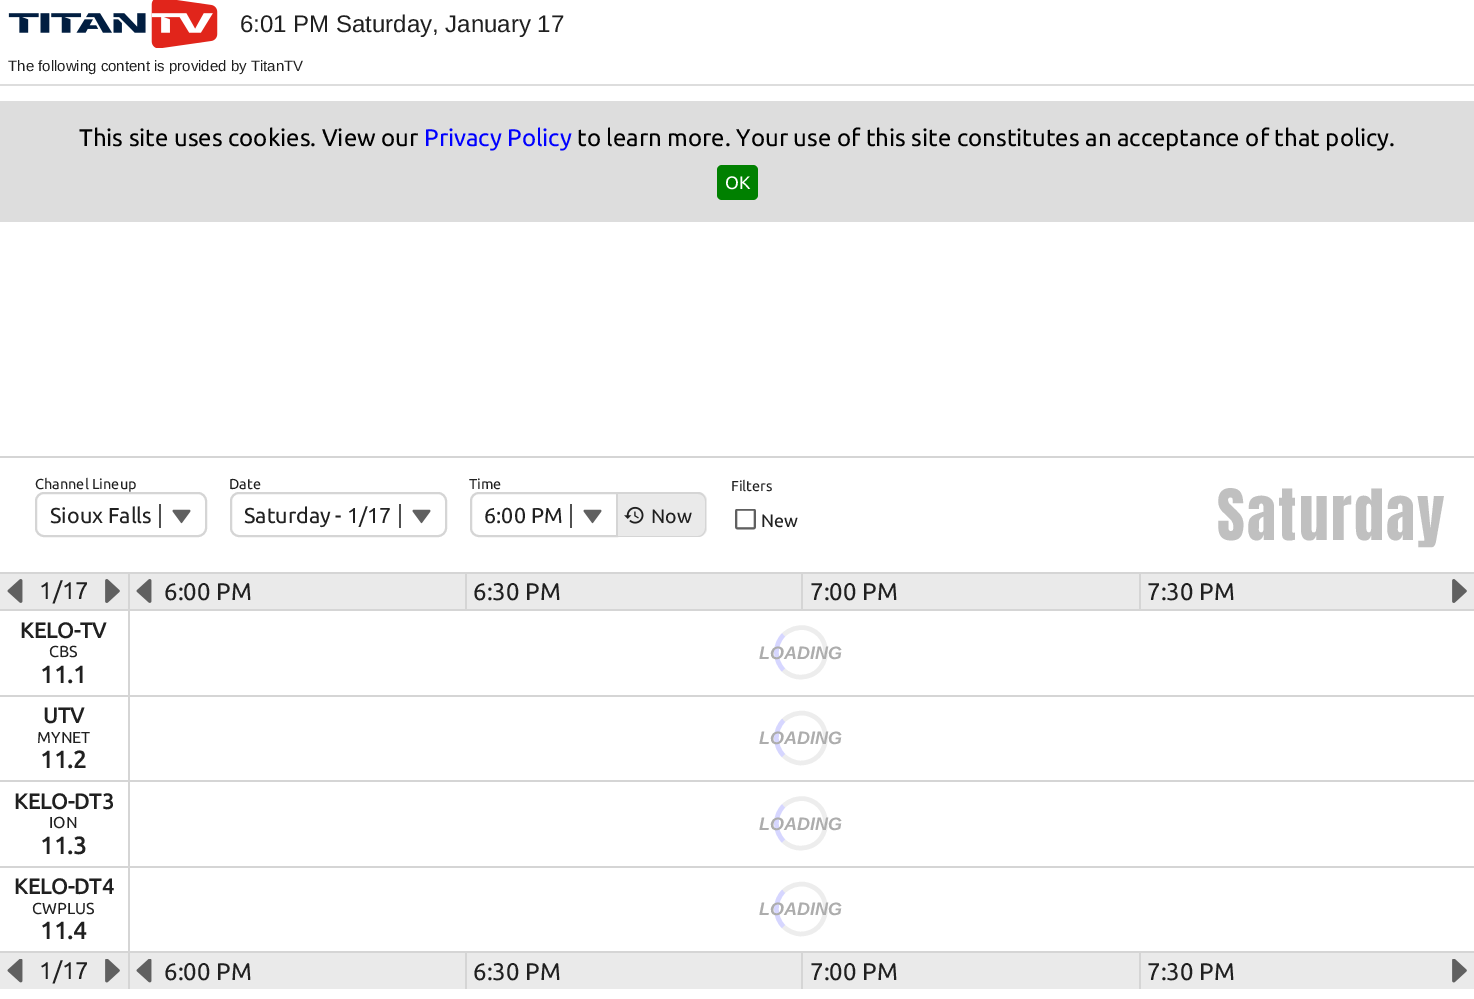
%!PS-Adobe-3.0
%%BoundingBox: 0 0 1474 999
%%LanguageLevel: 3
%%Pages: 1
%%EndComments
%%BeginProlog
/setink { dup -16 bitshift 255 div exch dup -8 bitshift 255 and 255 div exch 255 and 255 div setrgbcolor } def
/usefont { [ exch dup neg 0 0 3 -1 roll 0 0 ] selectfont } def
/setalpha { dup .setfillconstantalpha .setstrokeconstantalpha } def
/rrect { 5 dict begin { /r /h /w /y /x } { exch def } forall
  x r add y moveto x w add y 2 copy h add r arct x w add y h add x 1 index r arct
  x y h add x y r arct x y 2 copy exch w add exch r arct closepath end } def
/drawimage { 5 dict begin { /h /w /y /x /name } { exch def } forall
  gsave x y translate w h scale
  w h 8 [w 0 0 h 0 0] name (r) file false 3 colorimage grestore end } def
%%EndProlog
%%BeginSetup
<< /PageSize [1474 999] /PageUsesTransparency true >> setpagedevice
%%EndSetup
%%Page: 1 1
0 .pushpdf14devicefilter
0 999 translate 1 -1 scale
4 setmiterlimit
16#FFFFFF setink
0 0 1474 999 rectfill
(img1.raw) 8 0 210 48 drawimage
/LiberationSans-Regular 24 usefont
16#202020 setink
240 32 moveto (6:01 PM Saturday, January 17) show
/LiberationSans-Regular 15 usefont
8 71 moveto (The following content is provided by TitanTV) show
16#DDDDDD setink
0 84 1474 2 rectfill
0 101 1474 121 rectfill
/Ubuntu-Regular 24 usefont
16#000000 setink
79 146 moveto (This site uses cookies. View our) show
16#0000FF setink
424 146 moveto (Privacy Policy) show
16#000000 setink
577 146 moveto (to learn more. Your use of this site constitutes an acceptance of that policy.) show
16#008000 setink
717 165 41 35 5 rrect fill
/Ubuntu-Regular 18 usefont
16#FFFFFF setink
725 189 moveto (OK) show
16#D5D5D5 setink
0 456 1474 2 rectfill
/Ubuntu-Regular 14.5 usefont
16#202020 setink
35 489 moveto (Channel Lineup) show
16#D5D5D5 setink
2 setlinewidth
36 493 170 43 8 rrect stroke
16#505050 setink
159 504 2 24 rectfill
/Ubuntu-Regular 21.5 usefont
16#202020 setink
50 523 moveto (Sioux Falls) show
(img2.raw) 172 509 19 15 drawimage
/Ubuntu-Regular 14.5 usefont
229 489 moveto (Date) show
16#D5D5D5 setink
231 493 215 43 8 rrect stroke
16#505050 setink
399 504 2 24 rectfill
/Ubuntu-Regular 21.5 usefont
16#202020 setink
244 523 moveto (Saturday - 1/17) show
(img2.raw) 412 509 19 15 drawimage
/Ubuntu-Regular 14.5 usefont
469 489 moveto (Time) show
16#D5D5D5 setink
479 493 moveto 617 493 lineto 617 536 lineto 479 536 lineto 474.5 536 471 532.5 471 528 curveto 471 501 lineto 471 496.5 474.5 493 479 493 curveto closepath stroke
16#505050 setink
570 504 2 24 rectfill
/Ubuntu-Regular 21.5 usefont
16#202020 setink
484 523 moveto (6:00 PM) show
(img2.raw) 583 509 19 15 drawimage
16#EAEAEA setink
618 492 moveto 698 492 lineto 703 492 707 496 707 501 curveto 707 528 lineto 707 533 703 537 698 537 curveto 618 537 lineto closepath fill
16#D5D5D5 setink
618 492 moveto 698 492 lineto 702 492 706 496 706 501 curveto 706 528 lineto 706 533 702 537 698 537 curveto 618 537 lineto closepath 618 494 moveto 698 494 lineto 702 494 705 497 705 501 curveto 705 528 lineto 705 532 702 536 698 536 curveto 618 536 lineto closepath eofill
(img3.raw) 624 506 20 18 drawimage
/Ubuntu-Regular 19.5 usefont
16#202020 setink
651 523 moveto (Now) show
/Ubuntu-Regular 14.5 usefont
731 491 moveto (Filters) show
(img4.raw) 735 509 21 21 drawimage
/Ubuntu-Regular 18 usefont
761 527 moveto (New) show
/Anton-Regular 60 usefont
16#C0C0C0 setink
1217 540 moveto 2.25 0 (Saturday) ashow
[
    [0 574 1474 35 16#EAEAEA]
    [0 572 1474 2 16#D5D5D5]
    [128 573 2 36 16#D5D5D5]
] { aload pop setink rectfill } forall
(img5.raw) 7 579 16 24 drawimage
/Ubuntu-Regular 24 usefont
16#202020 setink
39 599 moveto (1/17) show
(img6.raw) 105 579 15 24 drawimage
(img5.raw) 136 579 16 24 drawimage
164 600 moveto (6:00 PM) show
16#D5D5D5 setink
465 573 2 36 rectfill
16#202020 setink
473 600 moveto (6:30 PM) show
16#D5D5D5 setink
801 573 2 36 rectfill
16#202020 setink
810 600 moveto (7:00 PM) show
16#D5D5D5 setink
1139 573 2 36 rectfill
16#202020 setink
1147 600 moveto (7:30 PM) show
(img6.raw) 1452 579 15 24 drawimage
16#D5D5D5 setink
0 609 1474 2 rectfill
128 611 2 84 rectfill
/Ubuntu-Bold 21.5 usefont
16#202020 setink
20 638 moveto (KELO-TV) show
/Ubuntu-Regular 16 usefont
49 657 moveto (CBS) show
/Ubuntu-Bold 24 usefont
40 683 moveto (11.1) show
16#EDEDED setink
4.5 setlinewidth
783.5 635 moveto 789.5 629 798 626.5 806 628 curveto 835 634 830.5 677 801 677 curveto 794.5 677.5 788 674.5 783.5 670 curveto stroke
16#D6D6FF setink
783.5 670 moveto 774 660.5 774 644.5 783.5 635 curveto stroke
/LiberationSans-BoldItalic 18 usefont
16#ADADAD setink
759 659 moveto (LOADING) show
16#D5D5D5 setink
0 695 1474 2 rectfill
128 696 2 84 rectfill
/Ubuntu-Bold 21.5 usefont
16#202020 setink
43 723 moveto (UTV) show
/Ubuntu-Regular 16 usefont
37 743 moveto (MYNET) show
/Ubuntu-Bold 24 usefont
40 768 moveto (11.2) show
16#EDEDED setink
783.5 720.5 moveto 789.5 714.5 798 712 806 713.5 curveto 835 719.5 830.5 762.5 801 763 curveto 794.5 763 788 760 783.5 755.5 curveto stroke
0.45 setalpha
16#A4A4FF setink
783.5 755.5 moveto 774 746 774 730 783.5 720.5 curveto stroke
/LiberationSans-BoldItalic 18 usefont
1 setalpha
16#ADADAD setink
759 744 moveto (LOADING) show
16#D5D5D5 setink
0 780 1474 2 rectfill
128 782 2 84 rectfill
/Ubuntu-Bold 21.5 usefont
16#202020 setink
14 809 moveto (KELO-DT3) show
/Ubuntu-Regular 16 usefont
49 828 moveto (ION) show
/Ubuntu-Bold 24 usefont
40 854 moveto (11.3) show
16#EDEDED setink
783.5 806 moveto 789.5 800 798 797.5 806 799 curveto 835 805 830.5 848 801 848 curveto 794.5 848.5 788 845.5 783.5 841 curveto stroke
16#D6D6FF setink
783.5 841 moveto 774 831.5 774 815.5 783.5 806 curveto stroke
/LiberationSans-BoldItalic 18 usefont
16#ADADAD setink
759 830 moveto (LOADING) show
16#D5D5D5 setink
0 866 1474 2 rectfill
128 867 2 84 rectfill
/Ubuntu-Bold 21.5 usefont
16#202020 setink
14 894 moveto (KELO-DT4) show
/Ubuntu-Regular 16 usefont
32 914 moveto (CWPLUS) show
/Ubuntu-Bold 24 usefont
40 939 moveto (11.4) show
16#EDEDED setink
783.5 891.5 moveto 789.5 885.5 798 883 806 884.5 curveto 835 890.5 830.5 933.5 801 934 curveto 794.5 934 788 931 783.5 926.5 curveto stroke
0.45 setalpha
16#A4A4FF setink
783.5 926.5 moveto 774 917 774 901 783.5 891.5 curveto stroke
/LiberationSans-BoldItalic 18 usefont
1 setalpha
16#ADADAD setink
759 915 moveto (LOADING) show
[
    [0 953 1474 36 16#EAEAEA]
    [0 951 1474 2 16#D5D5D5]
    [128 953 2 36 16#D5D5D5]
] { aload pop setink rectfill } forall
(img7.raw) 7 959 16 24 drawimage
/Ubuntu-Regular 24 usefont
16#202020 setink
39 979 moveto (1/17) show
(img8.raw) 105 959 15 24 drawimage
(img7.raw) 136 959 16 24 drawimage
164 980 moveto (6:00 PM) show
16#D5D5D5 setink
465 953 2 36 rectfill
16#202020 setink
473 980 moveto (6:30 PM) show
16#D5D5D5 setink
801 953 2 36 rectfill
16#202020 setink
810 980 moveto (7:00 PM) show
16#D5D5D5 setink
1139 953 2 36 rectfill
16#202020 setink
1147 980 moveto (7:30 PM) show
(img8.raw) 1452 959 15 24 drawimage
.poppdf14devicefilter showpage
%%EOF
